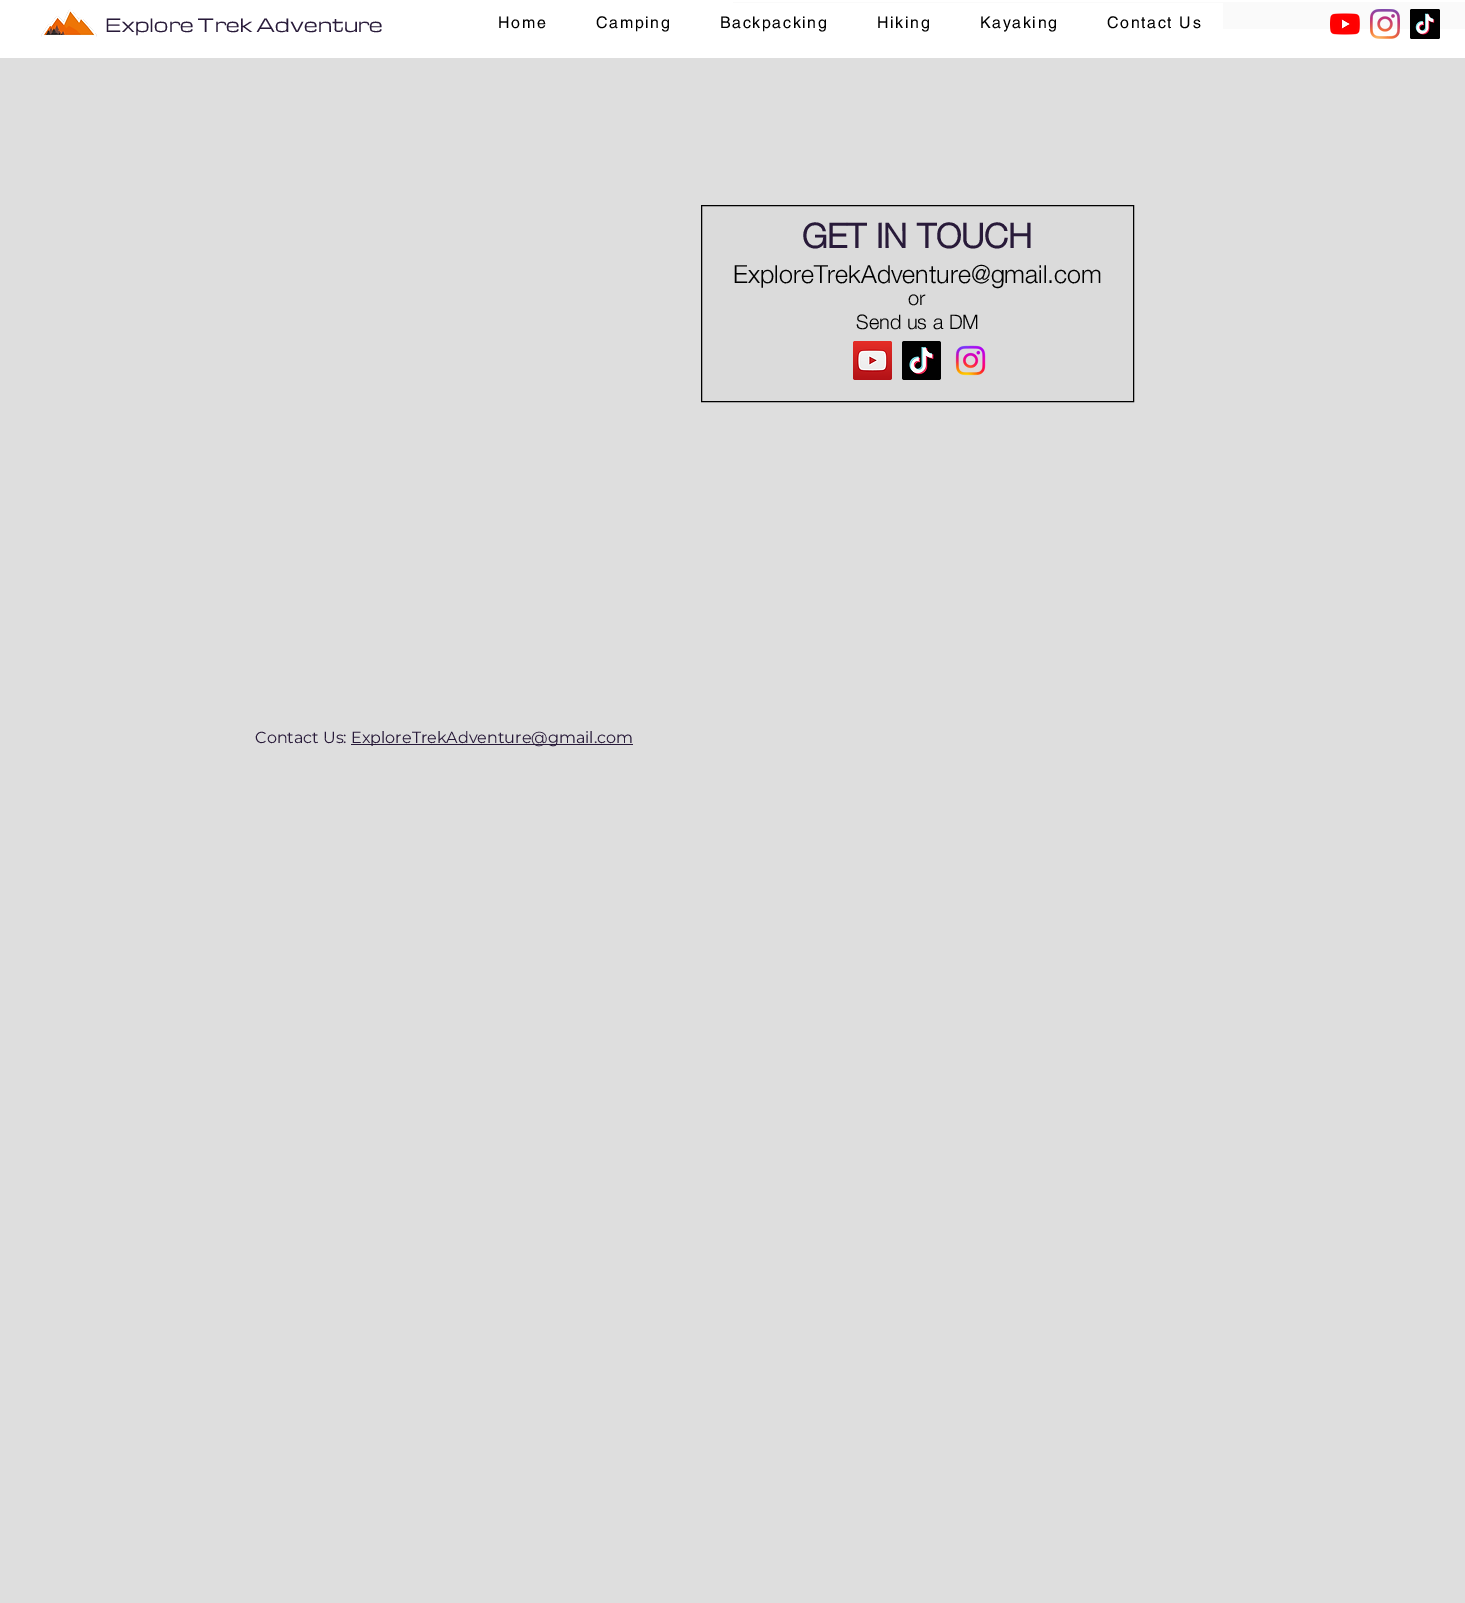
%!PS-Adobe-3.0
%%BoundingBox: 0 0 1465 1603
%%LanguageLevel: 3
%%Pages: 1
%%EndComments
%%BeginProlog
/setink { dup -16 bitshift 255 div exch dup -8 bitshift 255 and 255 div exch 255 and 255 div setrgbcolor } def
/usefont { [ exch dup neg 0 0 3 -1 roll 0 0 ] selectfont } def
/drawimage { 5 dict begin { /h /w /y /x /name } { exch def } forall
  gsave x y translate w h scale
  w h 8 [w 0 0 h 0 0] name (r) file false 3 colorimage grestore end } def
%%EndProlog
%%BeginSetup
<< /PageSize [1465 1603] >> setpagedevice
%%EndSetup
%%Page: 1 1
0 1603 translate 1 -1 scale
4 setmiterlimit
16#DEDEDE setink
0 0 1465 1603 rectfill
16#FFFFFF setink
0 0 1465 58 rectfill
(img1.raw) 41 9 56 28 drawimage
/Michroma-Regular 18 usefont
16#281A39 setink
105 32 moveto (Explore Trek Adventure) show
16#FAFAFA setink
733 2 732 27 rectfill
(img2.raw) 1330 13 30 22 drawimage
(img3.raw) 1370 9 30 30 drawimage
(img4.raw) 1410 9 30 30 drawimage
16#FFFFFF setink
733 3 490 26 rectfill
/helvetica-Regular 16 usefont
16#000000 setink
498 28 moveto 1.6 0 (Home) ashow
596 28 moveto 1.6 0 (Camping) ashow
720 28 moveto 1.6 0 (Backpacking) ashow
877 28 moveto 1.6 0 (Hiking) ashow
980 28 moveto 1.6 0 (Kayaking) ashow
1107 28 moveto 1.6 0 (Contact Us) ashow
16#DBDBDB setink
701.5 205.5 moveto 1133.5 205.5 lineto 1133.5 401.5 lineto 701.5 401.5 lineto closepath gsave fill grestore
16#000000 setink
stroke
/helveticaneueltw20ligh-Bold 34 usefont
16#281A39 setink
802 248 moveto (GET IN TOUCH) show
/helveticaneueltw20ligh-Light 25 usefont
16#000000 setink
733 283 moveto (ExploreTrekAdventure@gmail.com) show
/helveticaneueltw20ligh-Light 20 usefont
908 305 moveto (or) show
856 329 moveto (Send us a DM) show
(img5.raw) 853 341 39 39 drawimage
(img6.raw) 902 341 39 39 drawimage
(img7.raw) 955 345 31 31 drawimage
/Montserrat-Regular 16 usefont
16#281A39 setink
255 743 moveto (Contact Us:) show
351 744 282 1 rectfill
351 743 moveto (ExploreTrekAdventure@gmail.com) show
showpage
%%EOF
